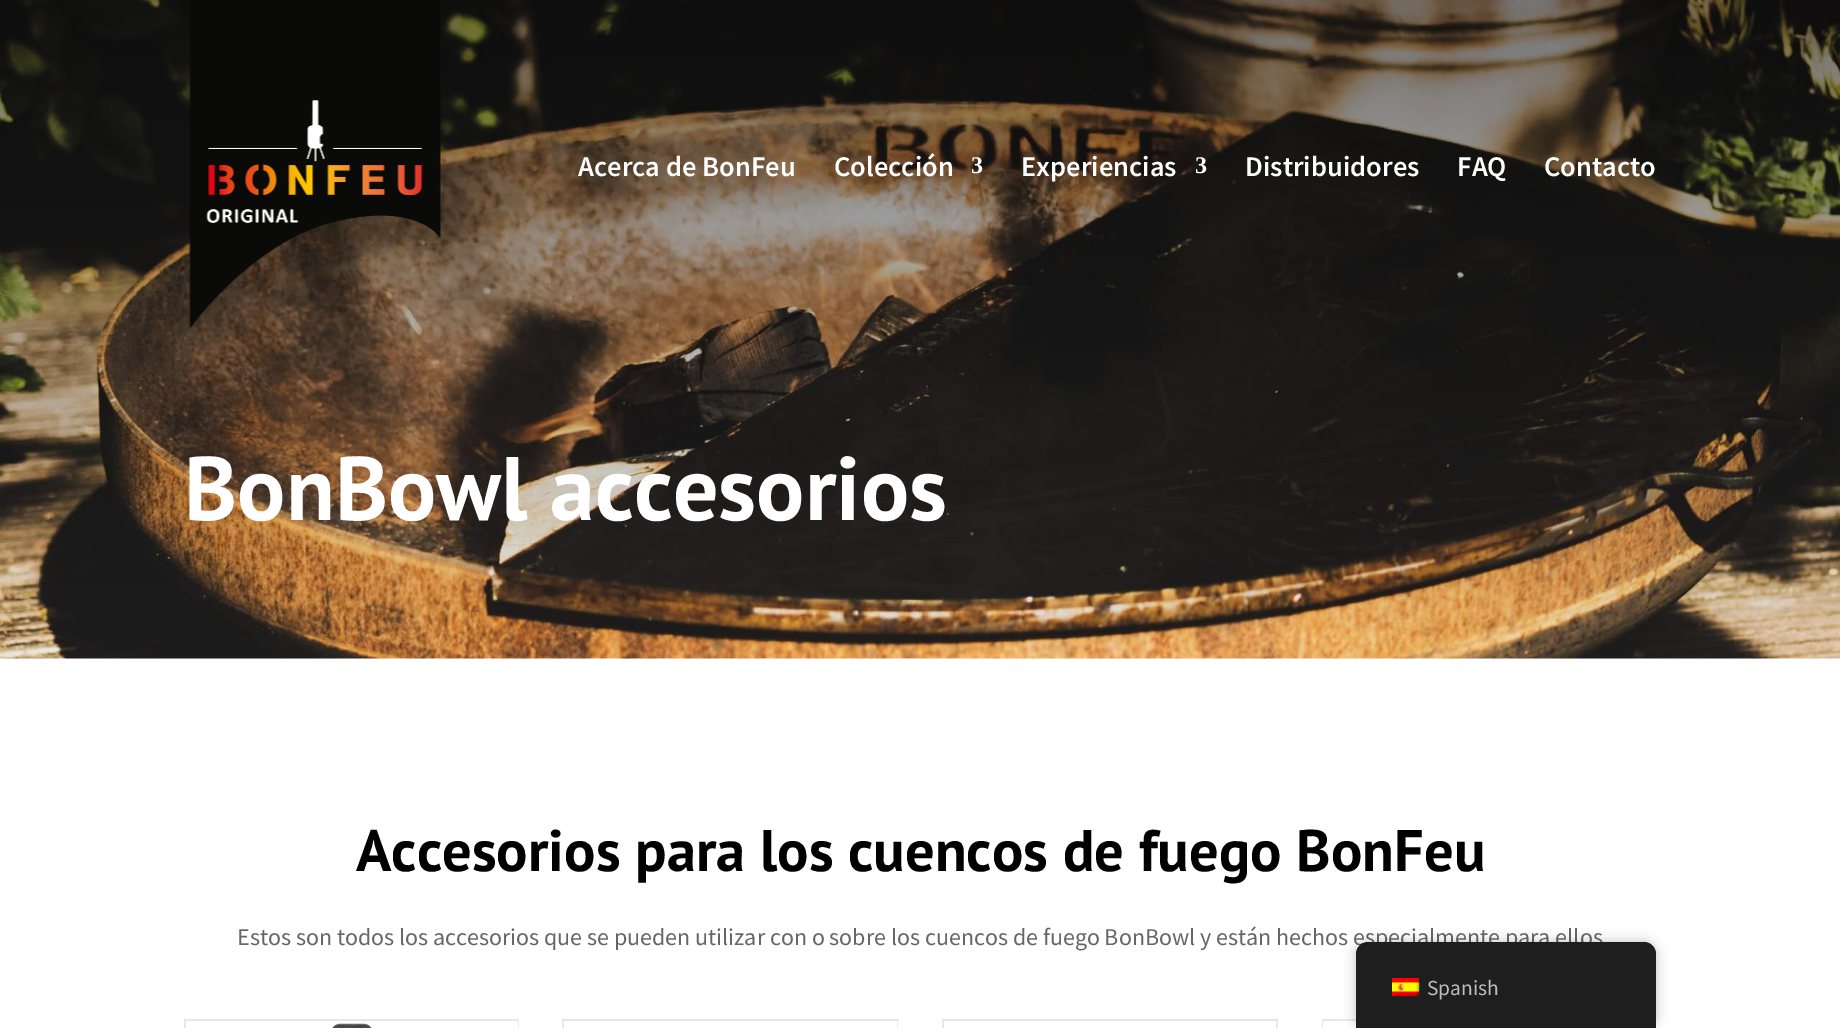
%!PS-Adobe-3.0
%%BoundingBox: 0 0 1840 1028
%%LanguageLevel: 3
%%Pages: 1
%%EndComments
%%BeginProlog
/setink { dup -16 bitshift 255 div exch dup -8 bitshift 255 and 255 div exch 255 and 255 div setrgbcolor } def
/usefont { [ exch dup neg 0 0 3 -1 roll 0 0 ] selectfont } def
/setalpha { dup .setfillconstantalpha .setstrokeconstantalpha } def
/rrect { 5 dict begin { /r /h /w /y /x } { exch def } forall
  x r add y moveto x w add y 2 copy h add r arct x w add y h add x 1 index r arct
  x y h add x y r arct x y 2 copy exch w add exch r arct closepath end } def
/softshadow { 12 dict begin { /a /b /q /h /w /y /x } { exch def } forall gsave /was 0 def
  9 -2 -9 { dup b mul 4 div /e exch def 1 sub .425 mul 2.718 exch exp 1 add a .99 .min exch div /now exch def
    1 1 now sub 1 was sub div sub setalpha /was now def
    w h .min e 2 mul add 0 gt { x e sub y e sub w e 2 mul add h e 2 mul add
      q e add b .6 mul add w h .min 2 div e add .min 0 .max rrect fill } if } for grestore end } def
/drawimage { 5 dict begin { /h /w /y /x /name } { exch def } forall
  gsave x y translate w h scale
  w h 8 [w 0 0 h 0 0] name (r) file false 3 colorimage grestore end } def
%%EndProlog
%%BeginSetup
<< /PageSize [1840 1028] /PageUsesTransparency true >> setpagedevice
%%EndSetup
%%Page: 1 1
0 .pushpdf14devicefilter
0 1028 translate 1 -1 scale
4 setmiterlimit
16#FFFFFF setink
0 0 1840 1028 rectfill
(img2.raw) 0 0 1840 659 drawimage
(img1.raw) 189 0 252 328 drawimage
/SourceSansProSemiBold-SemiBold 28.5 usefont
578 176 moveto (Acerca de BonFeu) show
834 176 moveto (Colección) show
/LiberationSerif-Bold 24 usefont
971 173 moveto (3) show
/SourceSansProSemiBold-SemiBold 28.5 usefont
1021 176 moveto (Experiencias) show
/LiberationSerif-Bold 24 usefont
1195 173 moveto (3) show
/SourceSansProSemiBold-SemiBold 28.5 usefont
[
    [(Distribuidores) 1245 176]
    [(FAQ) 1457 176]
    [(Contacto) 1544 176]
] { aload pop moveto show } forall
/PTSans-Bold 90 usefont
184 520 moveto (BonBowl accesorios) show
/PTSans-Bold 58.5 usefont
16#000000 setink
356 871 moveto (Accesorios para los cuencos de fuego BonFeu) show
/SourceSansPro-Regular 24 usefont
16#666666 setink
237 945 moveto (Estos son todos los accesorios que se pueden utilizar con o sobre los cuencos de fuego BonBowl y están hechos especialmente para ellos) show
16#E8E8E8 setink
185 1019 334 2 rectfill
519 1018 moveto 519 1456 lineto 518 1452 lineto 518 1020 lineto closepath fill
184 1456 moveto 184 1018 lineto 186 1020 lineto 186 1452 lineto closepath fill
(img3.raw) 332 1023 40 5 drawimage
563 1019 336 2 rectfill
898 1018 moveto 898 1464 lineto 897 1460 lineto 897 1020 lineto closepath fill
562 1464 moveto 562 1018 lineto 564 1020 lineto 564 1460 lineto closepath fill
942 1019 336 2 rectfill
1278 1018 moveto 1278 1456 lineto 1276 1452 lineto 1276 1020 lineto closepath fill
942 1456 moveto 942 1018 lineto 944 1020 lineto 944 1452 lineto closepath fill
1322 1019 34 2 rectfill
1322 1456 moveto 1322 1018 lineto 1323 1020 lineto 1323 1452 lineto closepath fill
16#000000 setink
1356 942 300 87 12 6 0.25 softshadow
16#1E1E1E setink
1368 942 moveto 1644 942 lineto 1650.5 942 1656 947.5 1656 954 curveto 1656 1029 lineto 1356 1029 lineto 1356 954 lineto 1356 947.5 1361.5 942 1368 942 curveto closepath fill
(img4.raw) 1392 978 28 19 drawimage
/SourceSansPro-Regular 21.5 usefont
16#BDBDBD setink
1427 995 moveto (Spanish) show
.poppdf14devicefilter showpage
%%EOF
